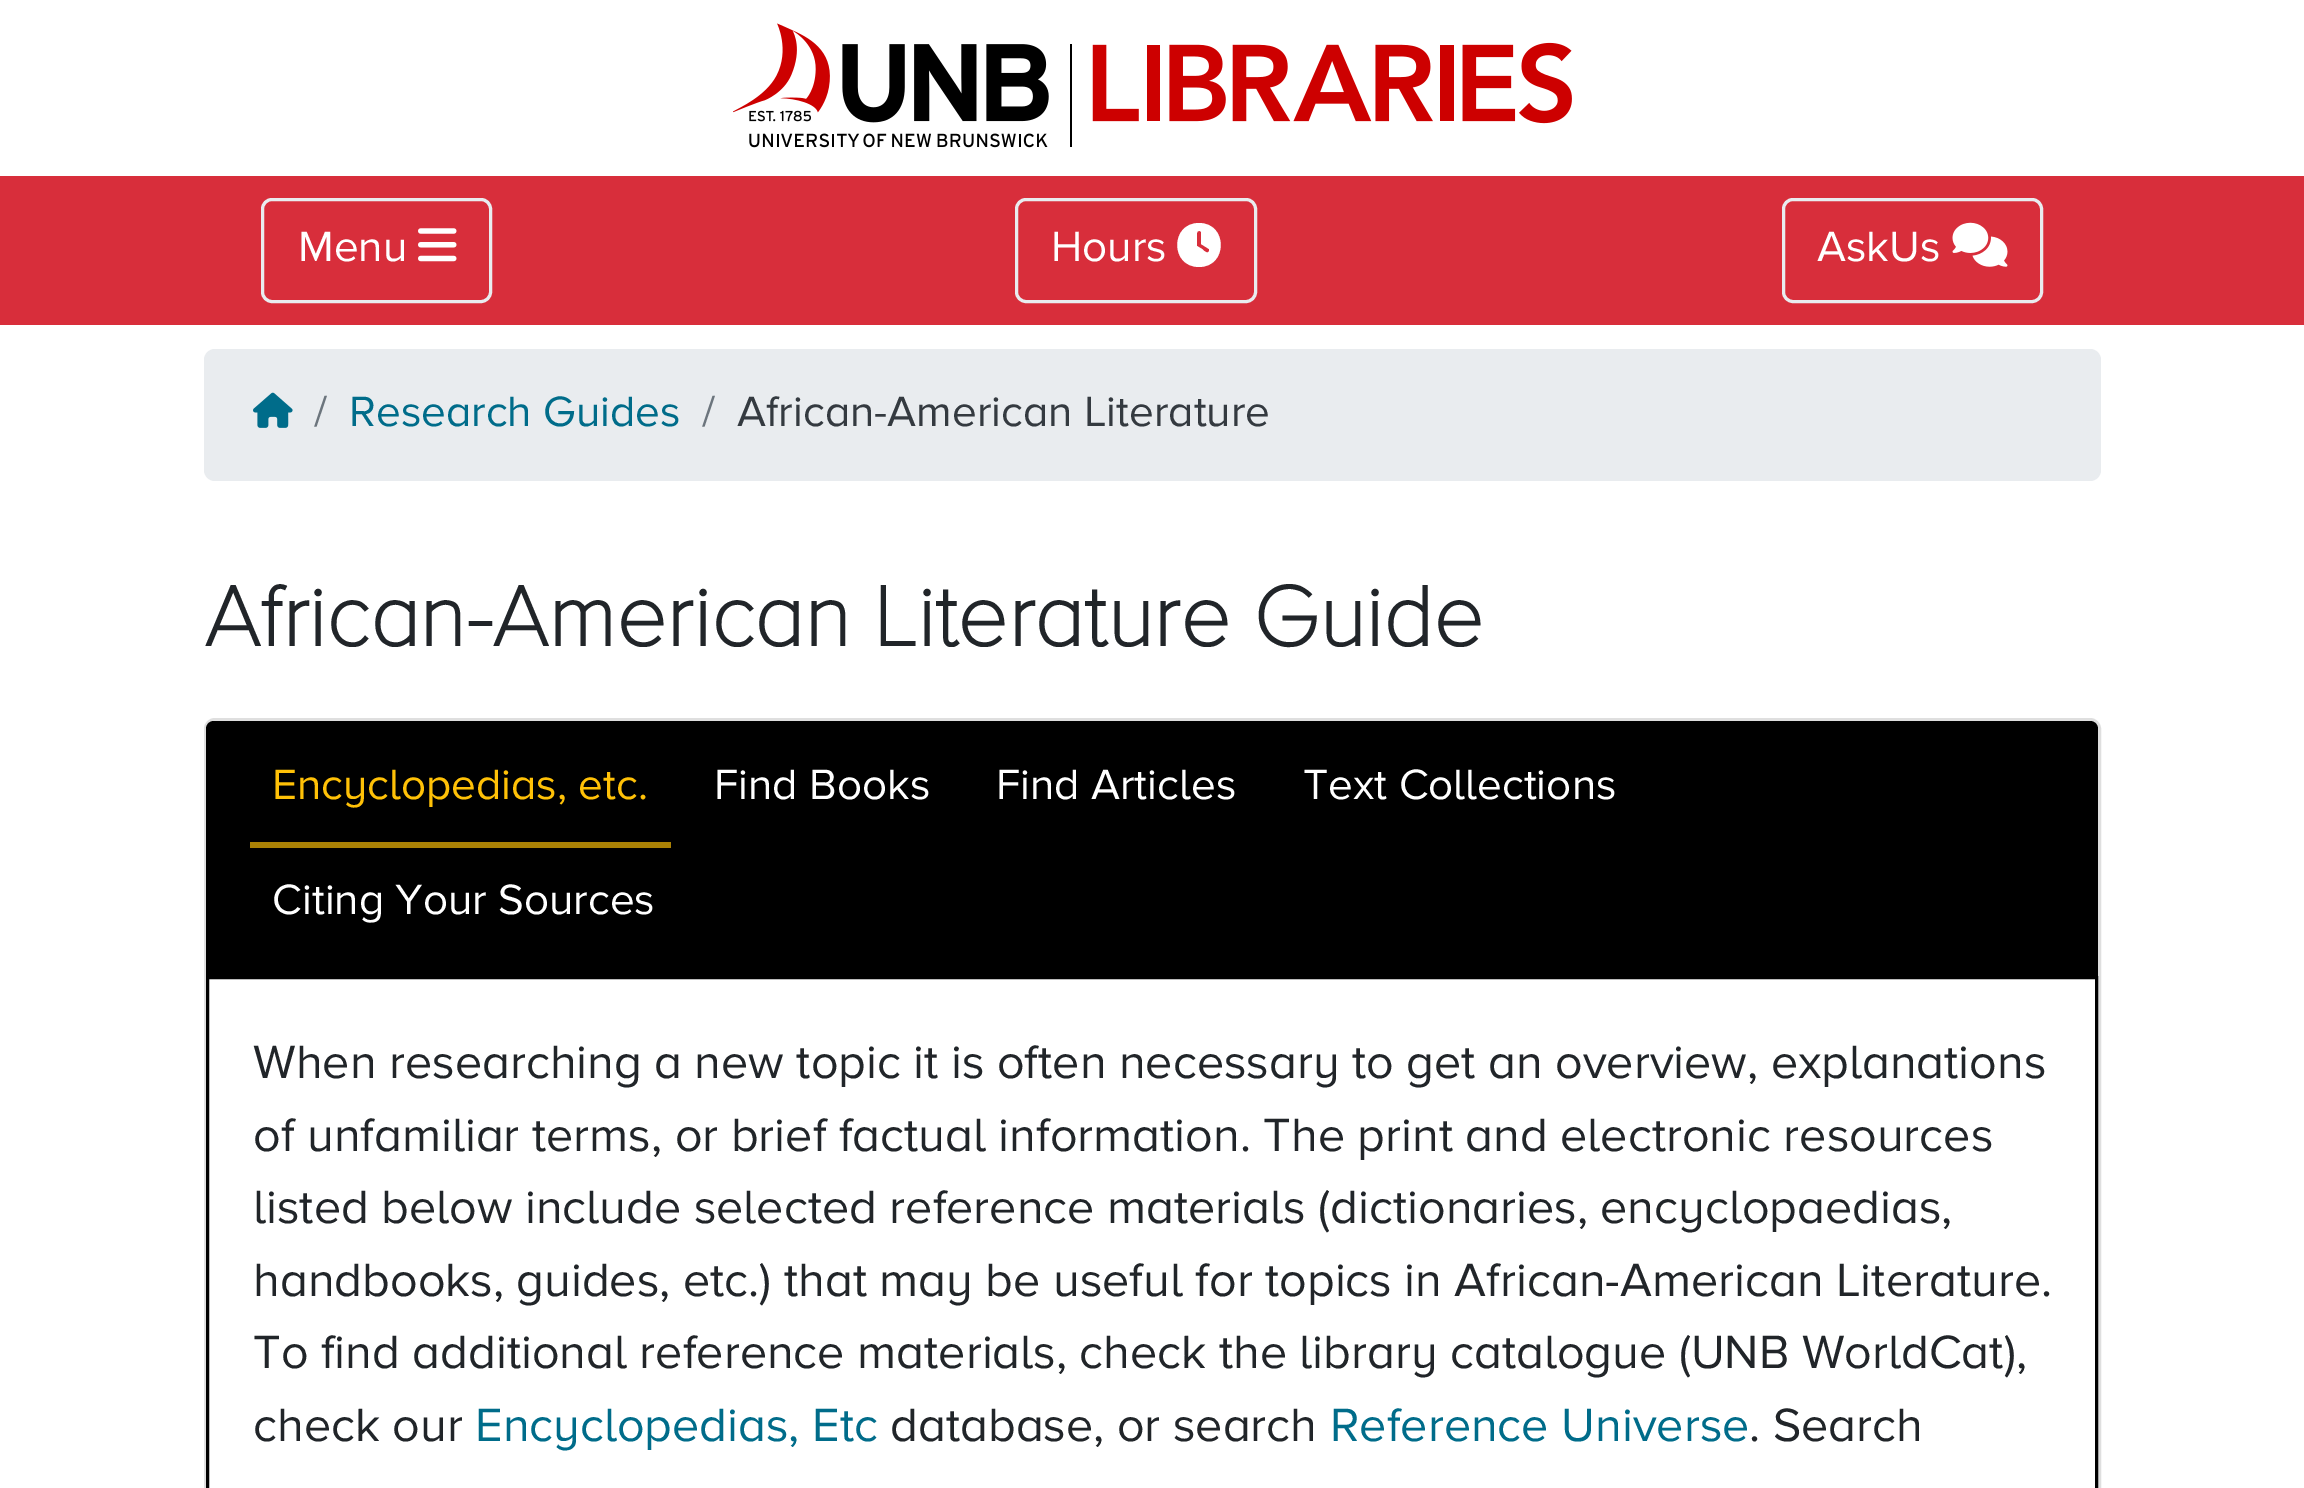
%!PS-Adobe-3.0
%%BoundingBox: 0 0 2304 1488
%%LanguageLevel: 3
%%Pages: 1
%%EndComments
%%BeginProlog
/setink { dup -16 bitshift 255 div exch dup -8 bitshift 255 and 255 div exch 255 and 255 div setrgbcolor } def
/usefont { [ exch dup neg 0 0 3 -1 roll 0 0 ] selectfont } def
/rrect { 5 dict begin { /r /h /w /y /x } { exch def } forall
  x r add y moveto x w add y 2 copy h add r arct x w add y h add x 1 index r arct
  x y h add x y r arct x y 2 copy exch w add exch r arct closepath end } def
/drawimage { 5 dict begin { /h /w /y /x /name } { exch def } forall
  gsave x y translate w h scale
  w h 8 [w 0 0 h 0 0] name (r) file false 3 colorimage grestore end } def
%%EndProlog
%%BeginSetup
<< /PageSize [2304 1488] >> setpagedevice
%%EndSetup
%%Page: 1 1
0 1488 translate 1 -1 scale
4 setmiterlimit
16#FFFFFF setink
0 0 2304 1488 rectfill
(img1.raw) 733 23 839 125 drawimage
16#D82E3B setink
0 176 2304 149 rectfill
16#E9ECEF setink
3 setlinewidth
262.5 199.5 228 102 9.5 rrect stroke
/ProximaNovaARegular-Regular 44 usefont
16#FFFFFF setink
298 261 moveto (Menu) show
(img2.raw) 418 228 39 34 drawimage
16#E9ECEF setink
1016.5 199.5 239 102 9.5 rrect stroke
16#FFFFFF setink
1051 261 moveto (Hours) show
1199 223 moveto 1228 223 1228 267 1199 267 curveto 1170 267 1170 223 1199 223 curveto closepath 1197 233 moveto 1197 246 lineto 1202 249 lineto 1203 250 1208 255 1209 251 curveto 1209 249 lineto 1201 244 lineto 1201 232 lineto 1200 230 1197 231 1197 233 curveto closepath fill
16#E9ECEF setink
1783.5 199.5 258 102 9.5 rrect stroke
16#FFFFFF setink
1817 261 moveto (AskUs) show
(img3.raw) 1952 222 56 45 drawimage
16#E9ECEF setink
204 349 1897 132 11 rrect fill
(img4.raw) 253 392 40 36 drawimage
16#6C757D setink
314 426 moveto (/) show
16#006C8A setink
349 426 moveto (Research Guides) show
16#6C757D setink
702 426 moveto (/) show
16#343A40 setink
737 426 moveto (African-American Literature) show
/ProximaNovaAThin-Bold 88 usefont
16#212529 setink
204 646 moveto (African-American Literature Guide) show
16#DFDFDF setink
205.5 719.5 1894 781 9.5 rrect stroke
16#000000 setink
214 721 moveto 2090 721 lineto 2094.5 721 2098 724.5 2098 729 curveto 2098 976 lineto 206 976 lineto 206 729 lineto 206 724.5 209.5 721 214 721 curveto closepath fill
16#AA8105 setink
250 842 421 6 rectfill
/ProximaNovaARegular-Regular 44 usefont
16#FFC107 setink
272 799 moveto (Encyclopedias, etc.) show
16#FFFFFF setink
[
    [(Find Books) 714 799]
    [(Find Articles) 996 799]
    [(Text Collections) 1303 799]
    [(Citing Your Sources) 272 914]
] { aload pop moveto show } forall
16#000000 setink
207.5 977.5 1889 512 rectstroke
/ProximaNovaARegular-Regular 48.4 usefont
16#212529 setink
[
    [(When researching a new topic it is often necessary to get an overview, explanations) 253 1078]
    [(of unfamiliar terms, or brief factual information. The print and electronic resources) 253 1151]
    [(listed below include selected reference materials \(dictionaries, encyclopaedias,) 253 1223]
    [(handbooks, guides, etc.\) that may be useful for topics in African-American Literature.) 253 1296]
    [(To find additional reference materials, check the library catalogue \(UNB WorldCat\),) 253 1368]
    [(check our) 253 1441]
] { aload pop moveto show } forall
16#006C8A setink
475 1441 moveto (Encyclopedias, Etc) show
16#212529 setink
890 1441 moveto (database, or search) show
16#006C8A setink
1330 1441 moveto (Reference Universe) show
16#212529 setink
1749 1441 moveto (. Search) show
showpage
%%EOF
